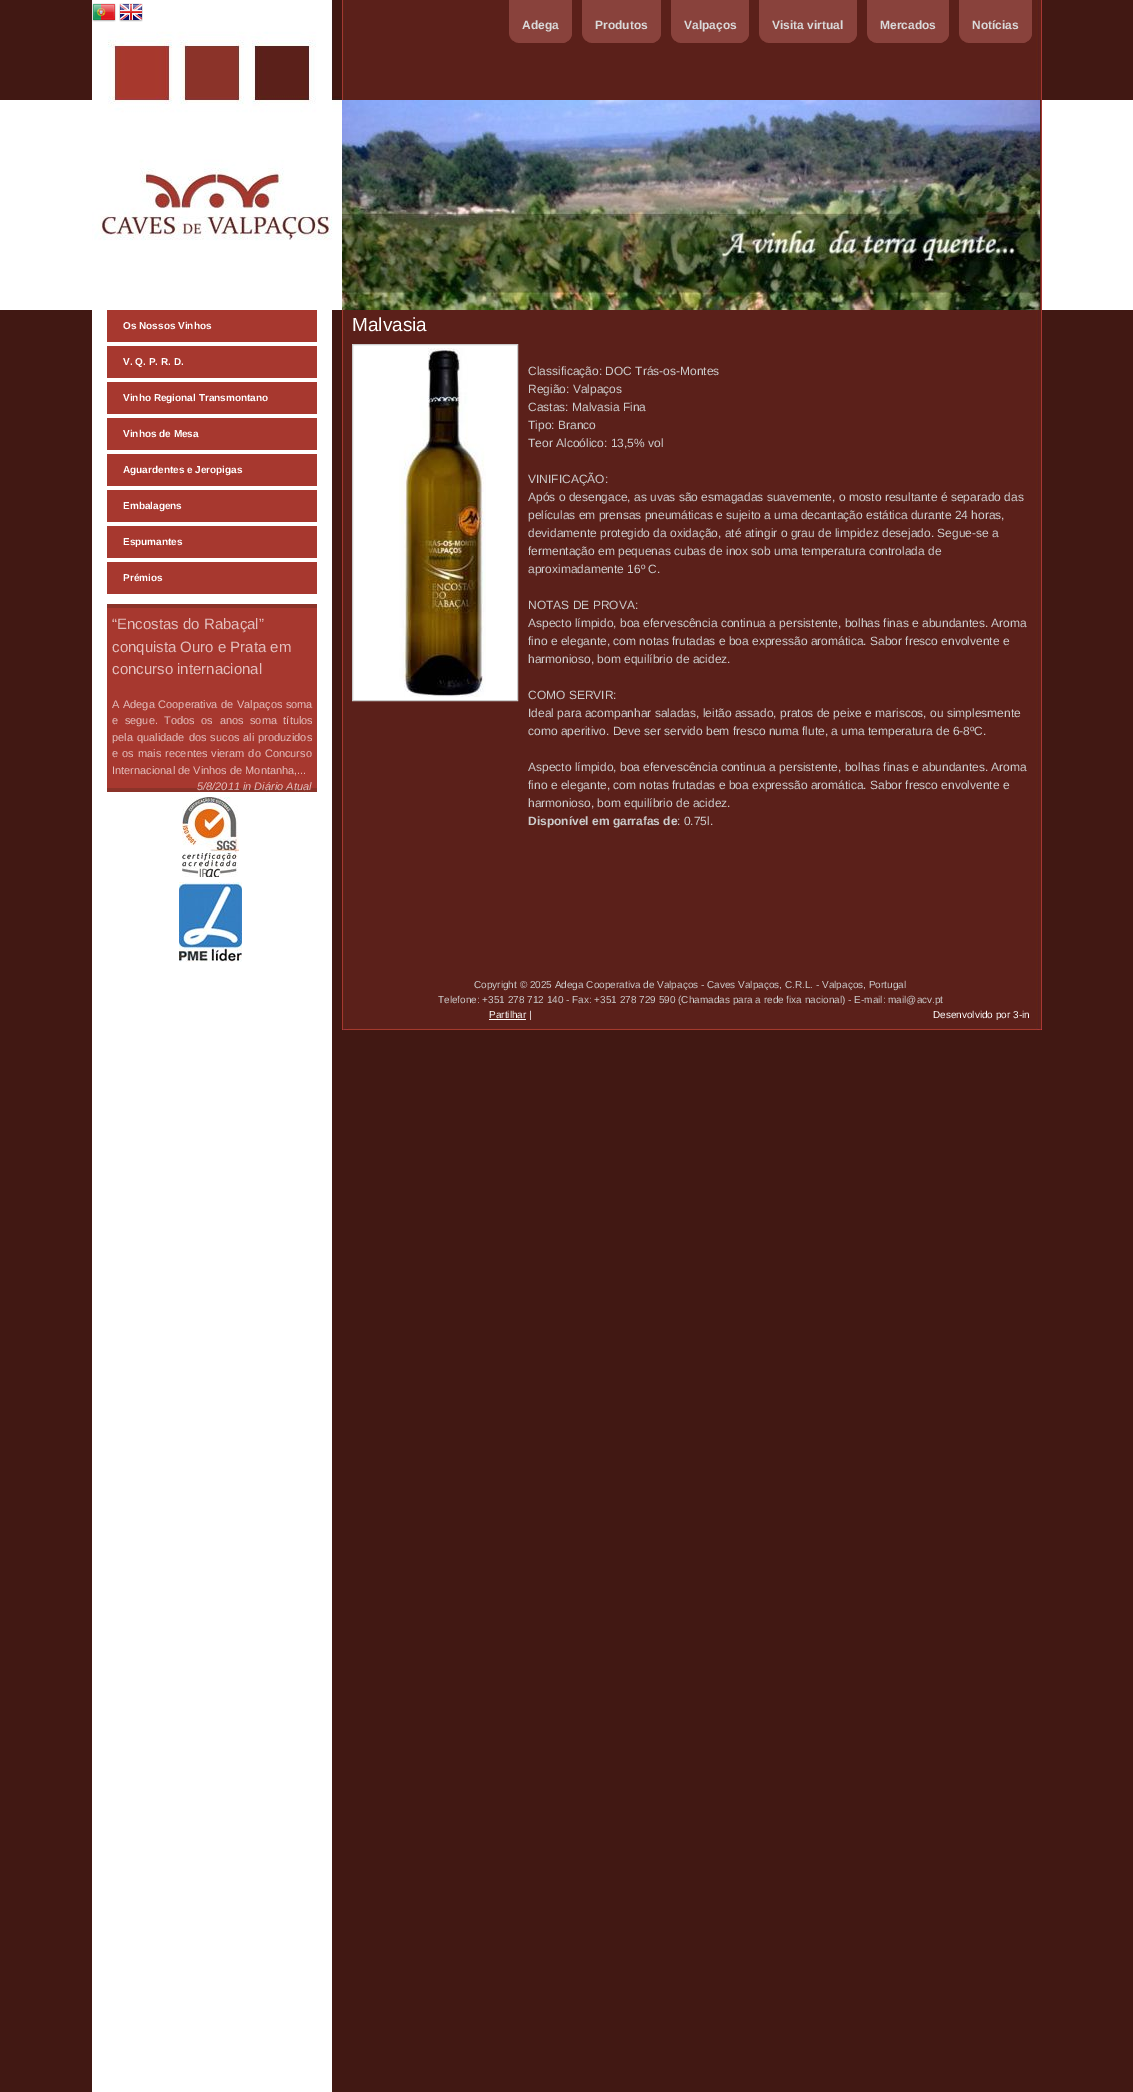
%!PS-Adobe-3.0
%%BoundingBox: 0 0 1133 2092
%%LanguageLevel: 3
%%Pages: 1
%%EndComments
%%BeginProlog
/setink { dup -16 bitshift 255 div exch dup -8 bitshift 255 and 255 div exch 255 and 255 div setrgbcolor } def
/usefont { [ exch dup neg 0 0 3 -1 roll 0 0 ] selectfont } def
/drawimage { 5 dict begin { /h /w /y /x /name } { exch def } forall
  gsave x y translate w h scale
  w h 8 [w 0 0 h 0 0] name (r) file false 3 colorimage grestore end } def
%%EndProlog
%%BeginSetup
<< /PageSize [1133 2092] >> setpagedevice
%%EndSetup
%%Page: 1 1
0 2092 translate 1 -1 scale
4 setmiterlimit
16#411813 setink
0 0 1133 2092 rectfill
16#FFFFFF setink
92 310 240 1782 rectfill
(img1.raw) 0 0 1133 310 drawimage
(img2.raw) 332 0 710 1030 drawimage
(img3.raw) 92 0 250 310 drawimage
(img4.raw) 92 3 24 19 drawimage
(img5.raw) 119 3 24 19 drawimage
(img6.raw) 509 0 55 43 drawimage
(img7.raw) 564 0 8 43 drawimage
/LiberationSans-Bold 12 usefont
16#DADADA setink
522 29 moveto (Adega) show
(img8.raw) 582 0 71 43 drawimage
(img7.raw) 653 0 8 43 drawimage
595 29 moveto (Produtos) show
(img9.raw) 671 0 70 43 drawimage
(img7.raw) 741 0 8 43 drawimage
684 29 moveto (Valpaços) show
(img10.raw) 759 0 90 43 drawimage
(img7.raw) 849 0 8 43 drawimage
772 29 moveto (Visita virtual) show
(img11.raw) 867 0 74 43 drawimage
(img7.raw) 941 0 8 43 drawimage
880 29 moveto (Mercados) show
(img12.raw) 959 0 65 43 drawimage
(img7.raw) 1024 0 8 43 drawimage
972 29 moveto (Notícias) show
(img13.raw) 342 100 698 210 drawimage
16#A7382F setink
107 310 210 32 rectfill
/LiberationSans-Bold 10 usefont
16#FFFFFF setink
123 329 moveto (Os Nossos Vinhos) show
16#A7382F setink
107 346 210 32 rectfill
16#FFFFFF setink
123 365 moveto (V. Q. P. R. D.) show
16#A7382F setink
107 382 210 32 rectfill
16#FFFFFF setink
123 401 moveto (Vinho Regional Transmontano) show
16#A7382F setink
107 418 210 32 rectfill
16#FFFFFF setink
123 437 moveto (Vinhos de Mesa) show
16#A7382F setink
107 454 210 32 rectfill
16#FFFFFF setink
123 473 moveto (Aguardentes e Jeropigas) show
16#A7382F setink
107 490 210 32 rectfill
16#FFFFFF setink
123 509 moveto (Embalagens) show
16#A7382F setink
107 526 210 32 rectfill
16#FFFFFF setink
123 545 moveto (Espumantes) show
16#A7382F setink
107 562 210 32 rectfill
16#FFFFFF setink
123 581 moveto (Prémios) show
[
    [107 608 210 180 16#A7382F]
    [107 604 210 4 16#8B3329]
    [107 788 210 4 16#8B3329]
] { aload pop setink rectfill } forall
/LiberationSans-Regular 15 usefont
16#E3BFBD setink
[
    [(“Encostas do Rabaçal”) 112 629]
    [(conquista Ouro e Prata em) 112 652]
    [(concurso internacional) 112 674]
] { aload pop moveto show } forall
/LiberationSans-Regular 11 usefont
112 708 moveto 0.5 0 32 (A Adega Cooperativa de Valpaços soma) widthshow
112 724 moveto 3.5 0 32 (e segue. Todos os anos soma títulos) widthshow
112 741 moveto 1 0 32 (pela qualidade dos sucos ali produzidos) widthshow
112 757 moveto 1 0 32 (e os mais recentes vieram do Concurso) widthshow
112 774 moveto (Internacional de Vinhos de Montanha,...) show
/LiberationSans-Italic 11 usefont
197 790 moveto (5/8/2011 in Diário Atual) show
(img14.raw) 182 797 57 80 drawimage
(img15.raw) 179 882 63 80 drawimage
/LiberationSans-Regular 19 usefont
16#FFFFFF setink
352 331 moveto (Malvasia) show
352.5 344.5 moveto 517.5 344.5 lineto 517.5 700.5 lineto 352.5 700.5 lineto closepath gsave fill grestore
16#CCCCCC setink
stroke
(img16.raw) 399 348 87 349 drawimage
/LiberationSans-Regular 12 usefont
[
    [(Classificação: DOC Trás-os-Montes) 528 375]
    [(Região: Valpaços) 528 393]
    [(Castas: Malvasia Fina) 528 411]
    [(Tipo: Branco) 528 429]
    [(Teor Alcoólico: 13,5% vol) 528 447]
    [(VINIFICAÇÃO:) 528 483]
    [(Após o desengace, as uvas são esmagadas suavemente, o mosto resultante é separado das) 528 501]
    [(películas em prensas pneumáticas e sujeito a uma decantação estática durante 24 horas,) 528 519]
    [(devidamente protegido da oxidação, até atingir o grau de limpidez desejado. Segue-se a) 528 537]
    [(fermentação em pequenas cubas de inox sob uma temperatura controlada de) 528 555]
    [(aproximadamente 16º C.) 528 573]
    [(NOTAS DE PROVA:) 528 609]
    [(Aspecto límpido, boa efervescência continua a persistente, bolhas finas e abundantes. Aroma) 528 627]
    [(fino e elegante, com notas frutadas e boa expressão aromática. Sabor fresco envolvente e) 528 645]
    [(harmonioso, bom equilíbrio de acidez.) 528 663]
    [(COMO SERVIR:) 528 699]
    [(Ideal para acompanhar saladas, leitão assado, pratos de peixe e mariscos, ou simplesmente) 528 717]
    [(como aperitivo. Deve ser servido bem fresco numa flute, a uma temperatura de 6-8ºC.) 528 735]
    [(Aspecto límpido, boa efervescência continua a persistente, bolhas finas e abundantes. Aroma) 528 771]
    [(fino e elegante, com notas frutadas e boa expressão aromática. Sabor fresco envolvente e) 528 789]
    [(harmonioso, bom equilíbrio de acidez.) 528 807]
] { aload pop moveto show } forall
/LiberationSans-Bold 12 usefont
528 825 moveto (Disponível em garrafas de) show
/LiberationSans-Regular 12 usefont
677 825 moveto (: 0.75l.) show
/LiberationSans-Regular 10 usefont
474 988 moveto (Copyright © 2025 Adega Cooperativa de Valpaços - Caves Valpaços, C.R.L. - Valpaços, Portugal) show
438 1003 moveto (Telefone: +351 278 712 140 - Fax: +351 278 729 590 \(Chamadas para a rede fixa nacional\) - E-mail: mail@acv.pt) show
16#FFFFFF setink
489 1019 37 1 rectfill
489 1018 moveto (Partilhar |) show
933 1018 moveto (Desenvolvido por 3-in) show
(img17.raw) 340 1028 702 2 drawimage
showpage
%%EOF
